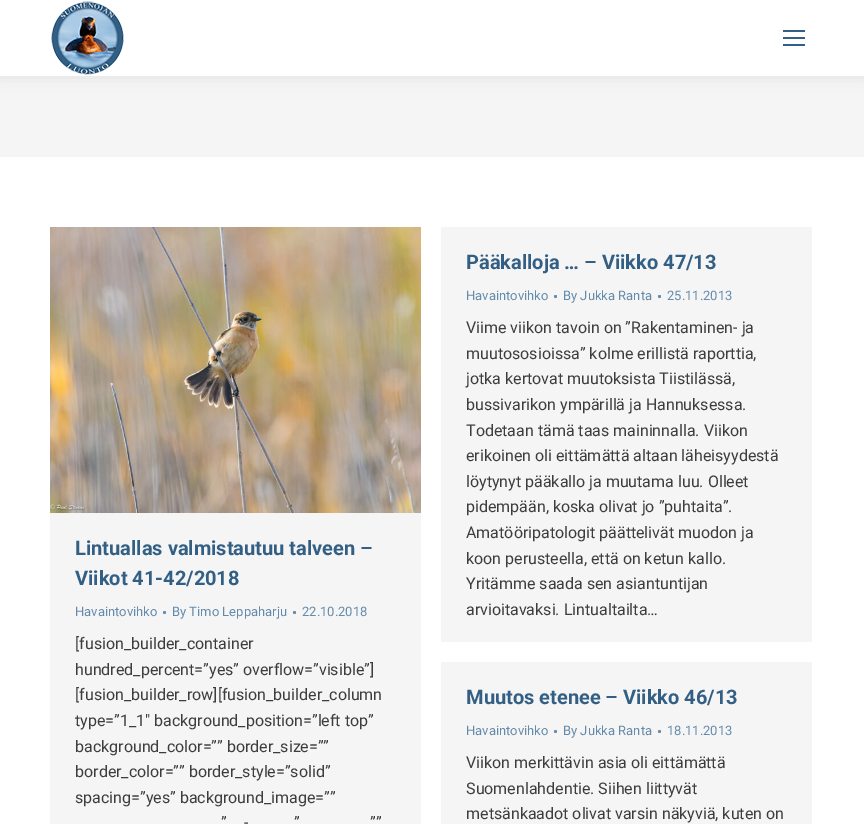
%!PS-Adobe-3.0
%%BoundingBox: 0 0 864 824
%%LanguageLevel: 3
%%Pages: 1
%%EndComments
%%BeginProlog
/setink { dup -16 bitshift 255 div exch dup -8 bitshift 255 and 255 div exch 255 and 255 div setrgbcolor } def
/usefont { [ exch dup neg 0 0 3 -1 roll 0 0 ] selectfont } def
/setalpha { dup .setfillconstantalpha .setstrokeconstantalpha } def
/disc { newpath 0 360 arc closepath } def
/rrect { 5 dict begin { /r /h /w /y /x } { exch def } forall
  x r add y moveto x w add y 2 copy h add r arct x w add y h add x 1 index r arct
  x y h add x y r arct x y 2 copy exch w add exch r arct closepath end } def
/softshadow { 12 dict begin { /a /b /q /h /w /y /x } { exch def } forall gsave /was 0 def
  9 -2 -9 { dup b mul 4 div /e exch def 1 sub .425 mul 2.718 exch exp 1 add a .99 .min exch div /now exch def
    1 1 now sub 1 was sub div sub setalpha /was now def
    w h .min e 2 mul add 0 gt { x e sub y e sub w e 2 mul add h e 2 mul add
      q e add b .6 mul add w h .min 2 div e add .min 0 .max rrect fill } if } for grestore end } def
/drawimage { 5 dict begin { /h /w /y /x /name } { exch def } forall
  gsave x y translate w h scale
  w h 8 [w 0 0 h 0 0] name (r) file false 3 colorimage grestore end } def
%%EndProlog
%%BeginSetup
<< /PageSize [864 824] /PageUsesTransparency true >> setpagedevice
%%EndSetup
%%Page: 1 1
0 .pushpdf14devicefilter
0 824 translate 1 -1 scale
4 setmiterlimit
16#FFFFFF setink
0 0 864 824 rectfill
16#F5F5F5 setink
0 76 864 81 rectfill
16#000000 setink
-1 -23 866 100 0 7.5 0.07 softshadow
16#FFFFFF setink
0 0 864 76 rectfill
(img1.raw) 51 1 73 74 drawimage
[
    [783 30 22 2 16#335F84]
    [783 37 22 2 16#335F84]
    [783 44 22 2 16#335F84]
    [441 227 371 415 16#F5F5F5]
] { aload pop setink rectfill } forall
/Roboto-Bold 20 usefont
16#335F84 setink
466 269 moveto (Pääkalloja … – Viikko 47/13) show
/Roboto-Regular 13 usefont
16#648BAB setink
466 300 moveto (Havaintovihko) show
555.5 296.5 1.5 disc fill
563 300 moveto (By Jukka Ranta) show
659.5 296.5 1.5 disc fill
667 300 moveto (25.11.2013) show
/Roboto-Regular 16 usefont
16#3D3D3D setink
[
    [(Viime viikon tavoin on ”Rakentaminen- ja) 466 333]
    [(muutososioissa” kolme erillistä raporttia,) 466 359]
    [(jotka kertovat muutoksista Tiistilässä,) 466 384]
    [(bussivarikon ympärillä ja Hannuksessa.) 466 410]
    [(Todetaan tämä taas maininnalla. Viikon) 466 436]
    [(erikoinen oli eittämättä altaan läheisyydestä) 466 461]
    [(löytynyt pääkallo ja muutama luu. Olleet) 466 487]
    [(pidempään, koska olivat jo ”puhtaita”.) 466 512]
    [(Amatööripatologit päättelivät muodon ja) 466 538]
    [(koon perusteella, että on ketun kallo.) 466 564]
    [(Yritämme saada sen asiantuntijan) 466 589]
    [(arvioitavaksi. Lintualtailta…) 466 615]
] { aload pop moveto show } forall
16#F5F5F5 setink
50 513 371 311 rectfill
(img2.raw) 50 227 371 286 drawimage
/Roboto-Bold 20 usefont
16#335F84 setink
75 555 moveto (Lintuallas valmistautuu talveen –) show
75 585 moveto (Viikot 41-42/2018) show
/Roboto-Regular 13 usefont
16#648BAB setink
75 616 moveto (Havaintovihko) show
164.5 612.5 1.5 disc fill
172 616 moveto (By Timo Leppaharju) show
294.5 612.5 1.5 disc fill
302 616 moveto (22.10.2018) show
/Roboto-Regular 16 usefont
16#3D3D3D setink
[
    [([fusion_builder_container) 75 649]
    [(hundred_percent=”yes” overflow=”visible”]) 75 675]
    [([fusion_builder_row][fusion_builder_column) 75 700]
    [(type=”1_1″ background_position=”left top”) 75 726]
    [(background_color=”” border_size=””) 75 752]
    [(border_color=”” border_style=”solid”) 75 777]
    [(spacing=”yes” background_image=””) 75 803]
    [(”) 221 828]
    [(”) 294 828]
    [(””) 370 828]
    [(-) 244 828]
] { aload pop moveto show } forall
16#F5F5F5 setink
441 662 371 162 rectfill
/Roboto-Bold 20 usefont
16#335F84 setink
466 704 moveto (Muutos etenee – Viikko 46/13) show
/Roboto-Regular 13 usefont
16#648BAB setink
466 735 moveto (Havaintovihko) show
555.5 731.5 1.5 disc fill
563 735 moveto (By Jukka Ranta) show
659.5 731.5 1.5 disc fill
667 735 moveto (18.11.2013) show
/Roboto-Regular 16 usefont
16#3D3D3D setink
[
    [(Viikon merkittävin asia oli eittämättä) 466 768]
    [(Suomenlahdentie. Siihen liittyvät) 466 794]
    [(metsänkaadot olivat varsin näkyviä, kuten on) 466 819]
] { aload pop moveto show } forall
.poppdf14devicefilter showpage
%%EOF
